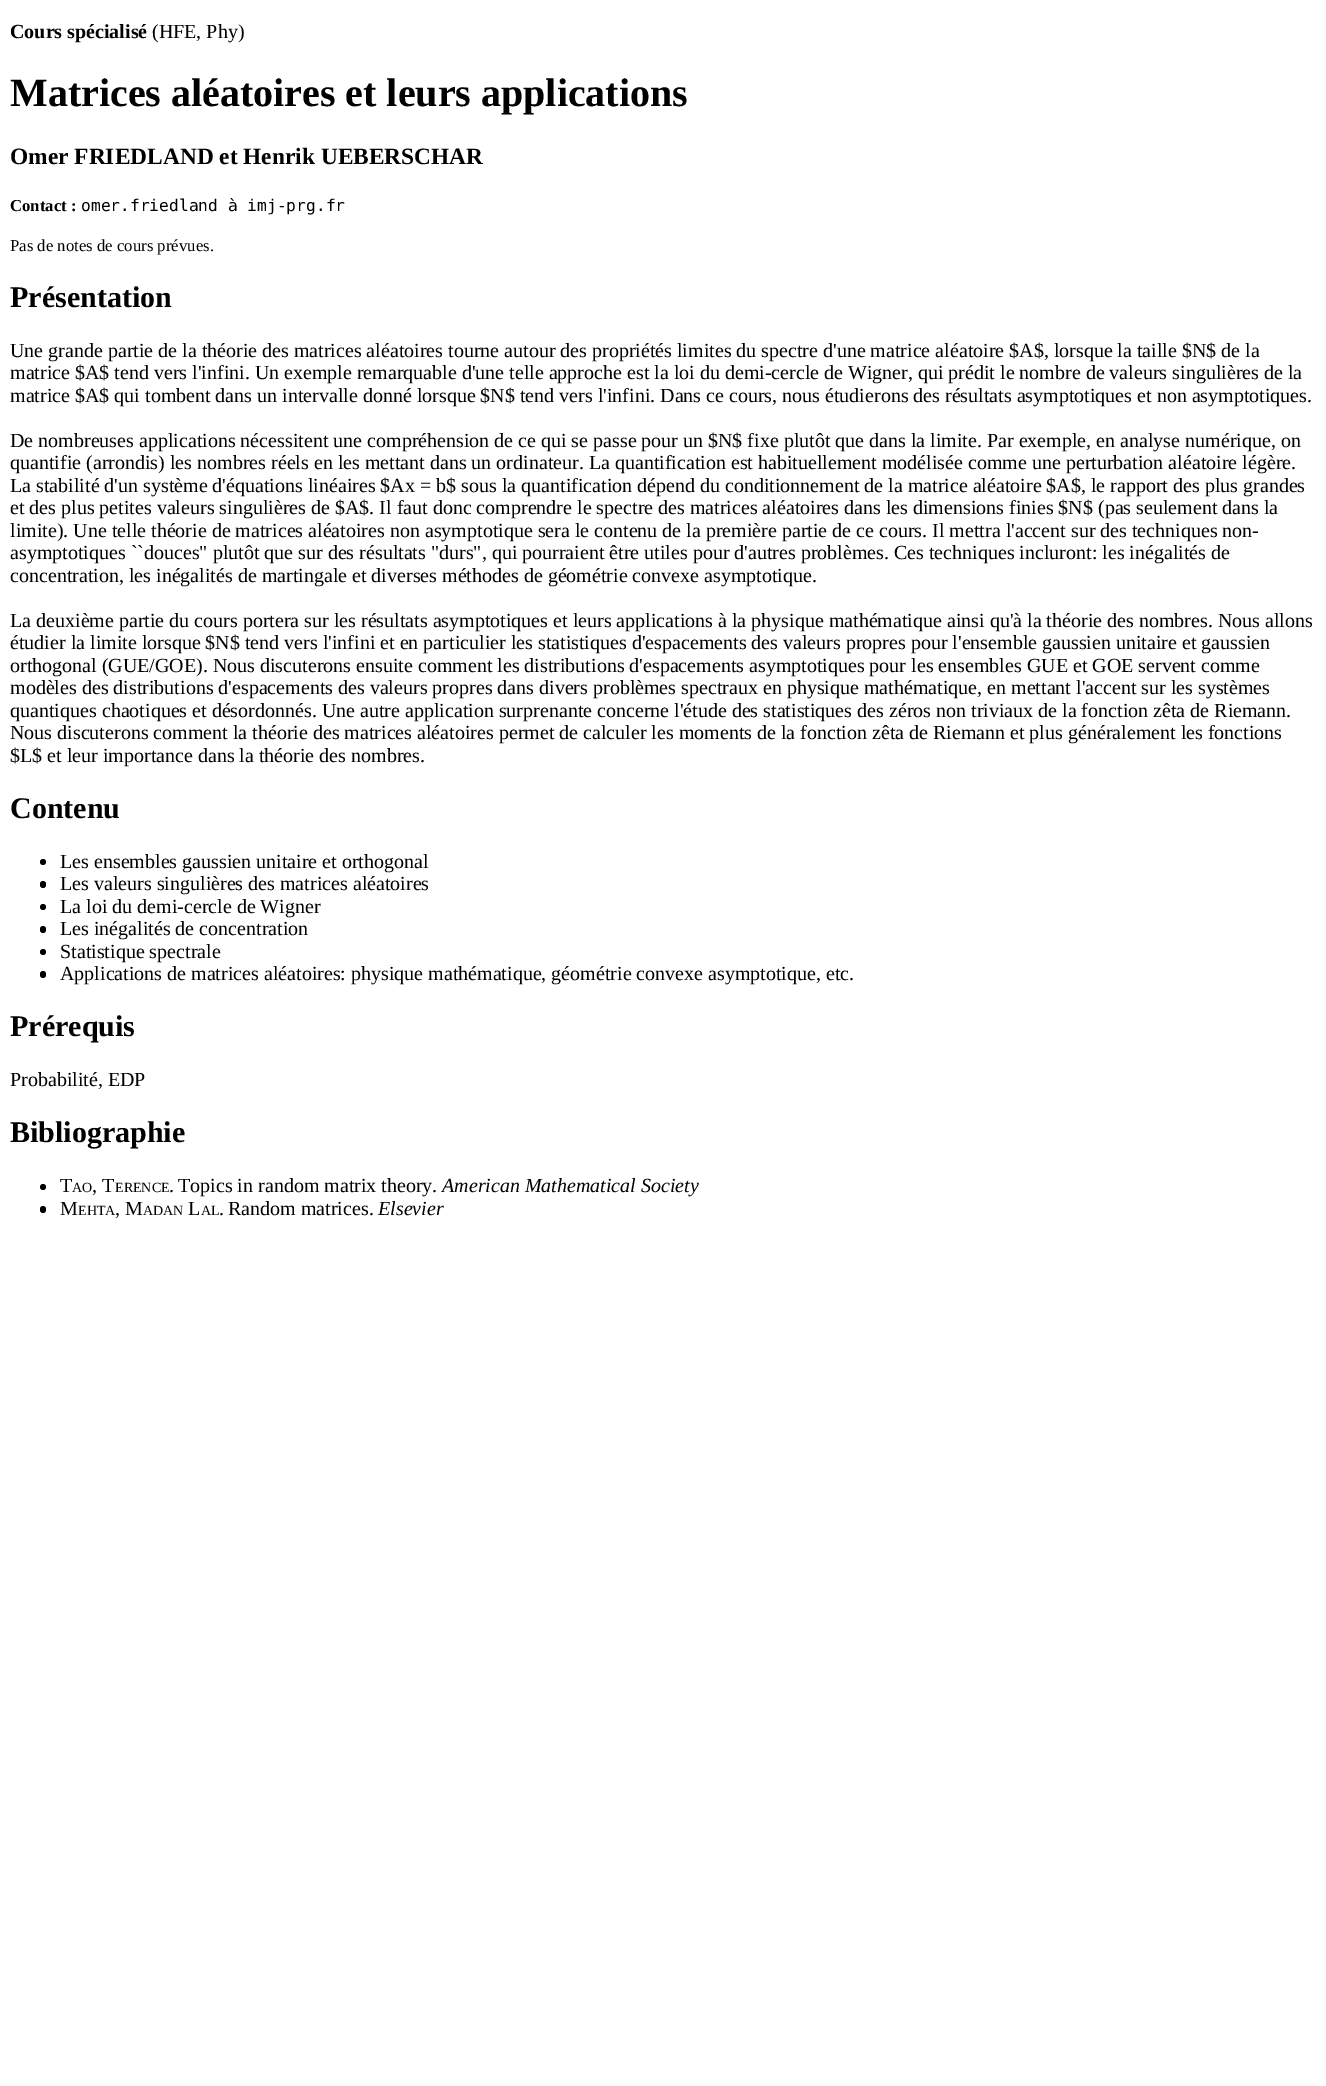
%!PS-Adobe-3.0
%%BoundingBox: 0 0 1326 2086
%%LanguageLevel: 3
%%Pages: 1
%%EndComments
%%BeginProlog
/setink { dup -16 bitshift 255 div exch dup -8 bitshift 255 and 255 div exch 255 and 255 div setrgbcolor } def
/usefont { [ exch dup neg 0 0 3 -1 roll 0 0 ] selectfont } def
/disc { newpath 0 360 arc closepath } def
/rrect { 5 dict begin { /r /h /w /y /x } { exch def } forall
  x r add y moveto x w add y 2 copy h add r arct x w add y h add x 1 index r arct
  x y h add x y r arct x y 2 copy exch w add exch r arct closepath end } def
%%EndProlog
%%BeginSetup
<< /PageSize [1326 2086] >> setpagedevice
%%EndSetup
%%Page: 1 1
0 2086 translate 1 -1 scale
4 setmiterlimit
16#FFFFFF setink
0 0 1326 2086 rectfill
/LiberationSerif-Bold 20 usefont
16#000000 setink
10 38 moveto (Cours spécialisé) show
/LiberationSerif-Regular 20 usefont
152 38 moveto (\(HFE, Phy\)) show
/LiberationSerif-Bold 40 usefont
10 106 moveto (Matrices aléatoires et leurs applications) show
/LiberationSerif-Bold 23.4 usefont
10 164 moveto (Omer FRIEDLAND et Henrik UEBERSCHAR) show
/LiberationSerif-Bold 16.75 usefont
10 211 moveto (Contact :) show
/DejaVuSansMono-Regular 16.25 usefont
81 211 moveto (omer.friedland à imj-prg.fr) show
/LiberationSerif-Regular 16.75 usefont
10 251 moveto (Pas de notes de cours prévues.) show
/LiberationSerif-Bold 30 usefont
10 307 moveto (Présentation) show
/LiberationSerif-Regular 20 usefont
[
    [(Une grande partie de la théorie des matrices aléatoires tourne autour des propriétés limites du spectre d'une matrice aléatoire $A$, lorsque la taille $N$ de la) 10 357]
    [(matrice $A$ tend vers l'infini. Un exemple remarquable d'une telle approche est la loi du demi-cercle de Wigner, qui prédit le nombre de valeurs singulières de la) 10 379]
    [(matrice $A$ qui tombent dans un intervalle donné lorsque $N$ tend vers l'infini. Dans ce cours, nous étudierons des résultats asymptotiques et non asymptotiques.) 10 402]
    [(De nombreuses applications nécessitent une compréhension de ce qui se passe pour un $N$ fixe plutôt que dans la limite. Par exemple, en analyse numérique, on) 10 447]
    [(quantifie \(arrondis\) les nombres réels en les mettant dans un ordinateur. La quantification est habituellement modélisée comme une perturbation aléatoire légère.) 10 469]
    [(La stabilité d'un système d'équations linéaires $Ax = b$ sous la quantification dépend du conditionnement de la matrice aléatoire $A$, le rapport des plus grandes) 10 492]
    [(et des plus petites valeurs singulières de $A$. Il faut donc comprendre le spectre des matrices aléatoires dans les dimensions finies $N$ \(pas seulement dans la) 10 514]
    [(limite\). Une telle théorie de matrices aléatoires non asymptotique sera le contenu de la première partie de ce cours. Il mettra l'accent sur des techniques non-) 10 537]
    [(asymptotiques ``douces" plutôt que sur des résultats "durs", qui pourraient être utiles pour d'autres problèmes. Ces techniques incluront: les inégalités de) 10 559]
    [(concentration, les inégalités de martingale et diverses méthodes de géométrie convexe asymptotique.) 10 582]
    [(La deuxième partie du cours portera sur les résultats asymptotiques et leurs applications à la physique mathématique ainsi qu'à la théorie des nombres. Nous allons) 10 627]
    [(étudier la limite lorsque $N$ tend vers l'infini et en particulier les statistiques d'espacements des valeurs propres pour l'ensemble gaussien unitaire et gaussien) 10 649]
    [(orthogonal \(GUE/GOE\). Nous discuterons ensuite comment les distributions d'espacements asymptotiques pour les ensembles GUE et GOE servent comme) 10 672]
    [(modèles des distributions d'espacements des valeurs propres dans divers problèmes spectraux en physique mathématique, en mettant l'accent sur les systèmes) 10 694]
    [(quantiques chaotiques et désordonnés. Une autre application surprenante concerne l'étude des statistiques des zéros non triviaux de la fonction zêta de Riemann.) 10 717]
    [(Nous discuterons comment la théorie des matrices aléatoires permet de calculer les moments de la fonction zêta de Riemann et plus généralement les fonctions) 10 739]
    [($L$ et leur importance dans la théorie des nombres.) 10 762]
] { aload pop moveto show } forall
/LiberationSerif-Bold 30 usefont
10 818 moveto (Contenu) show
43 862 3 disc fill
/LiberationSerif-Regular 20 usefont
60 868 moveto (Les ensembles gaussien unitaire et orthogonal) show
40 881 6 7 3 rrect fill
60 890 moveto (Les valeurs singulières des matrices aléatoires) show
43 907 3 disc fill
60 913 moveto (La loi du demi-cercle de Wigner) show
40 926 6 7 3 rrect fill
60 935 moveto (Les inégalités de concentration) show
43 952 3 disc fill
60 958 moveto (Statistique spectrale) show
40 971 6 7 3 rrect fill
60 980 moveto (Applications de matrices aléatoires: physique mathématique, géométrie convexe asymptotique, etc.) show
/LiberationSerif-Bold 30 usefont
10 1036 moveto (Prérequis) show
/LiberationSerif-Regular 20 usefont
10 1086 moveto (Probabilité, EDP) show
/LiberationSerif-Bold 30 usefont
10 1142 moveto (Bibliographie) show
43 1187 3 disc fill
/LiberationSerif-Regular 20 usefont
60 1192 moveto (T) show
/LiberationSerif-Regular 14 usefont
72 1192 moveto (AO) show
/LiberationSerif-Regular 20 usefont
92 1192 moveto (, T) show
/LiberationSerif-Regular 14 usefont
115 1192 moveto (ERENCE) show
/LiberationSerif-Regular 20 usefont
178 1192 moveto (Topics in random matrix theory.) show
/LiberationSerif-Italic 20 usefont
442 1192 moveto (American Mathematical Society) show
/LiberationSerif-Regular 20 usefont
169 1192 moveto (.) show
40 1206 6 7 3 rrect fill
60 1215 moveto (M) show
/LiberationSerif-Regular 14 usefont
78 1215 moveto (EHTA) show
/LiberationSerif-Regular 20 usefont
115 1215 moveto (, M) show
/LiberationSerif-Regular 14 usefont
143 1215 moveto (ADAN) show
/LiberationSerif-Regular 20 usefont
188 1215 moveto (L) show
/LiberationSerif-Regular 14 usefont
201 1215 moveto (AL) show
/LiberationSerif-Regular 20 usefont
228 1215 moveto (Random matrices.) show
/LiberationSerif-Italic 20 usefont
378 1215 moveto (Elsevier) show
/LiberationSerif-Regular 20 usefont
219 1215 moveto (.) show
showpage
%%EOF
